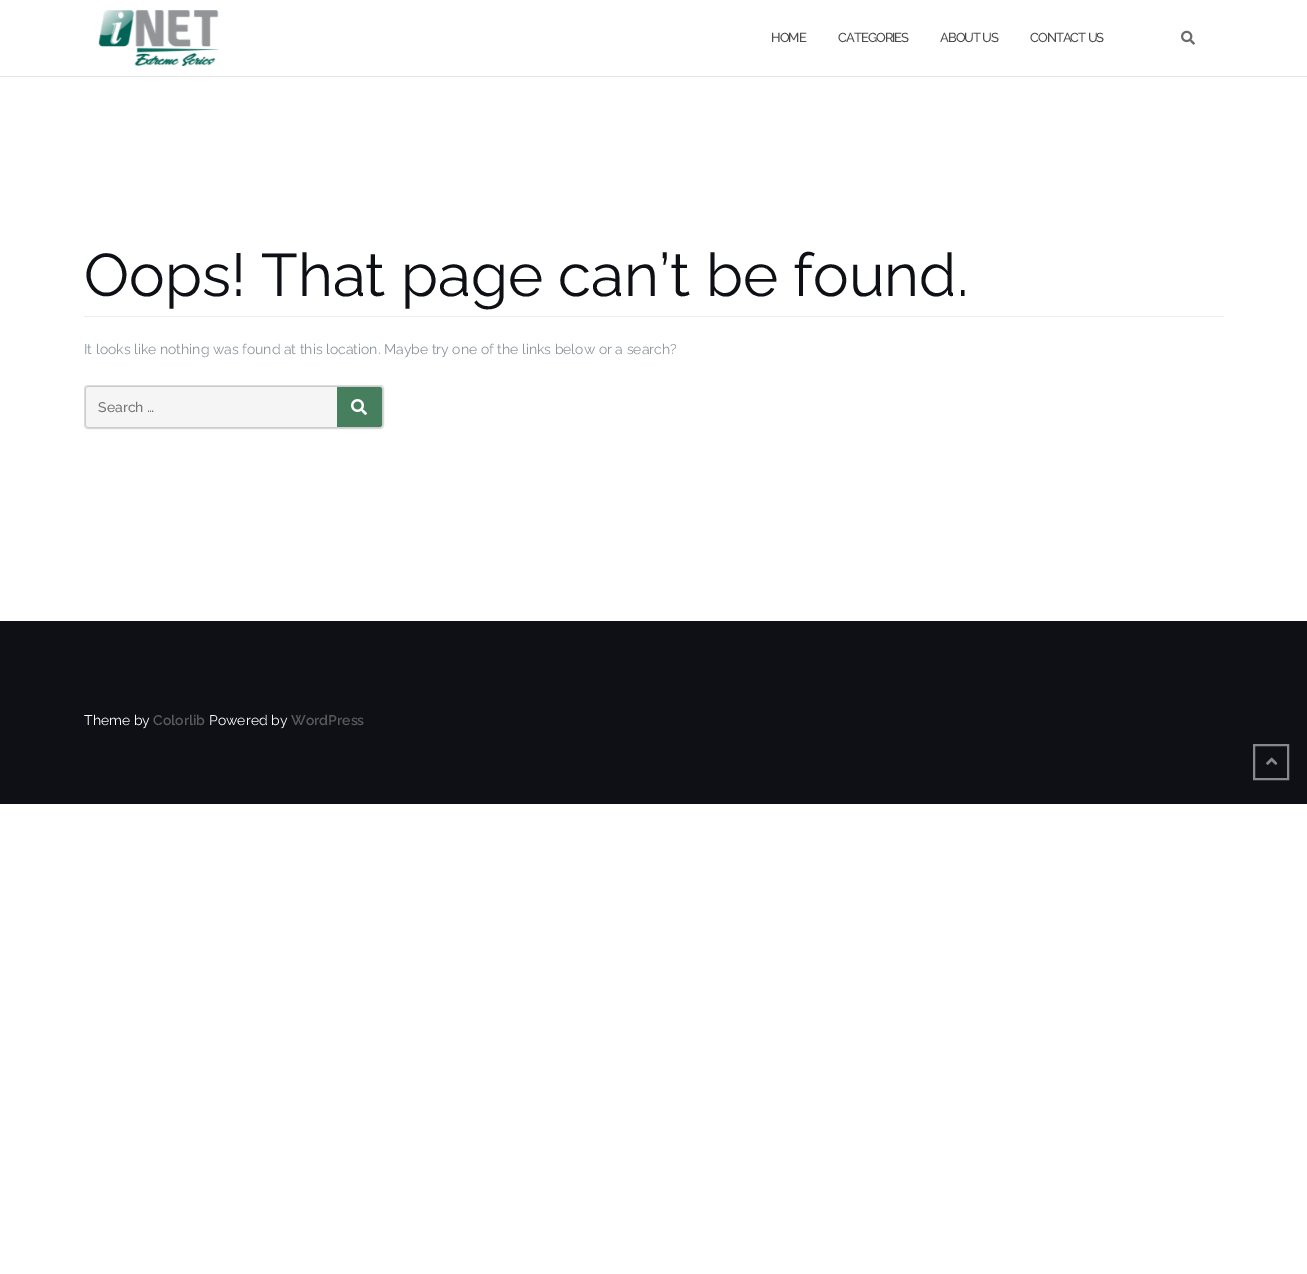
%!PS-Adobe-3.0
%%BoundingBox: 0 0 1307 1274
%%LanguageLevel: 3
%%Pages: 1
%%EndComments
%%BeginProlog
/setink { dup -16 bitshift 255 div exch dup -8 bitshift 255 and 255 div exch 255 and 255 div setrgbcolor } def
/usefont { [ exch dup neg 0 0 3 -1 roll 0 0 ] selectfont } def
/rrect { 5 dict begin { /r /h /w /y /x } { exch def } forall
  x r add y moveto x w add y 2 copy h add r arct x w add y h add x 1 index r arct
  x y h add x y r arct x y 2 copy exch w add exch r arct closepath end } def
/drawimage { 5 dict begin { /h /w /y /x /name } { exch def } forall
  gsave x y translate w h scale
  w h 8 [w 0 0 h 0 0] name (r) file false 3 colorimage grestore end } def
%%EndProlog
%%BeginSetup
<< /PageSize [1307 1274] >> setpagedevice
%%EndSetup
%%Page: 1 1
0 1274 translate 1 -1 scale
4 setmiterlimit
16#FFFFFF setink
0 0 1307 1274 rectfill
16#E6E6E6 setink
0 76 1307 1 rectfill
(img1.raw) 98 10 121 56 drawimage
/Raleway-Medium 13 usefont
16#4C4C4C setink
771 42 moveto -1 0 (HOME) ashow
838 42 moveto -1 0 (CATEGORIES) ashow
940 42 moveto -1 0 (ABOUT US) ashow
1030 42 moveto -1 0 (CONTACT US) ashow
(img2.raw) 1181 30 14 15 drawimage
16#EEEEEE setink
84 316 1140 1 rectfill
/Raleway-Regular 60 usefont
16#0E1015 setink
84 296 moveto (Oops! That page can’t be found.) show
/Raleway-Regular 14 usefont
16#8C979E setink
84 354 moveto (It looks like nothing was found at this location. Maybe try one of the links below or a search?) show
16#DDDDDD setink
84.5 385.5 299 43 3.5 rrect stroke
16#CCCCCC setink
85.5 386.5 297 41 3.5 rrect stroke
16#F5F5F5 setink
89 387 moveto 337 387 lineto 337 427 lineto 89 427 lineto 87.5 427 86 425.5 86 424 curveto 86 390 lineto 86 388.5 87.5 387 89 387 curveto closepath fill
/Raleway-Medium 14 usefont
16#757575 setink
98 412 moveto (Search …) show
16#467F5D setink
337 387 moveto 337 427 lineto 379 427 lineto 381 427 382 426 382 424 curveto 382 390 lineto 382 388 381 387 379 387 curveto closepath fill
(img3.raw) 351 399 16 16 drawimage
16#0E1015 setink
0 621 1307 183 rectfill
/Raleway-Regular 14 usefont
16#FFFFFF setink
84 725 moveto (Theme by) show
/Raleway-SemiBold 14 usefont
16#58595A setink
153 725 moveto (Colorlib) show
/Raleway-Regular 14 usefont
16#FFFFFF setink
209 725 moveto (Powered by) show
/Raleway-SemiBold 14 usefont
16#58595A setink
291 725 moveto (WordPress) show
16#87888A setink
2 setlinewidth
1254 745 34 34 rectstroke
(img4.raw) 1266 757 12 8 drawimage
showpage
%%EOF
